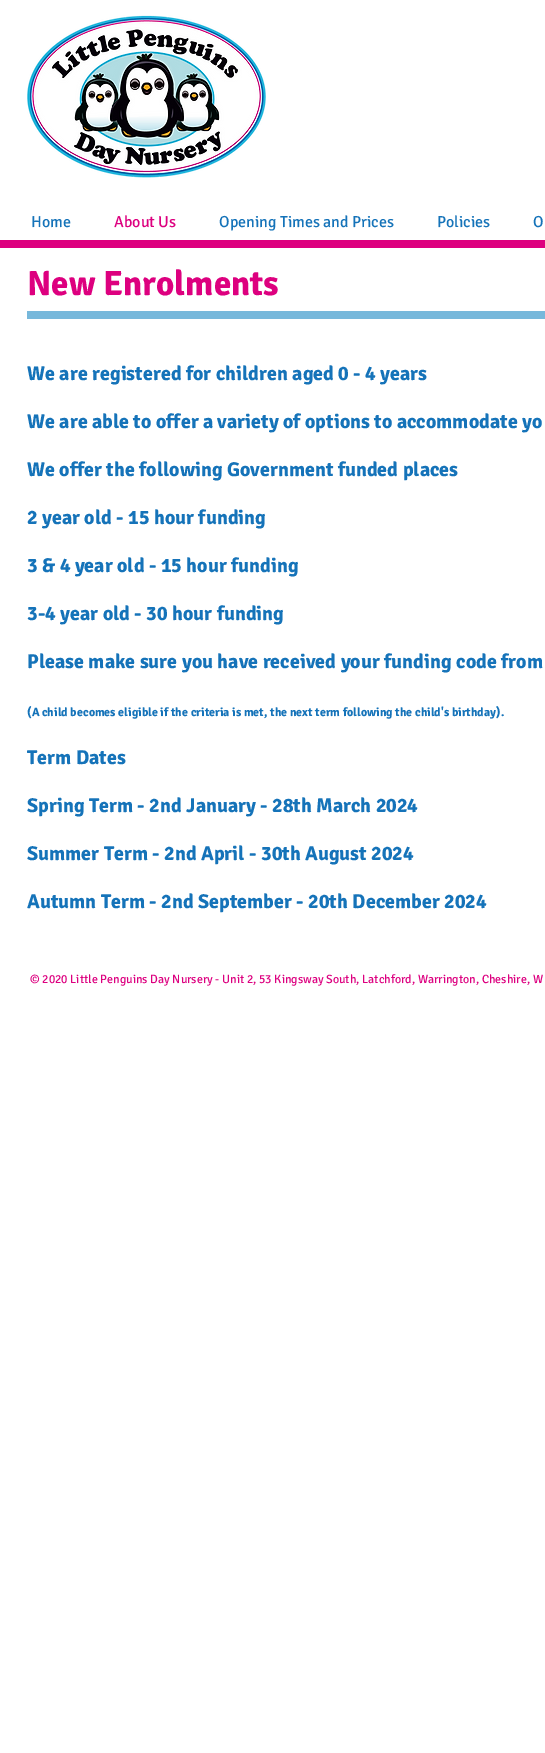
%!PS-Adobe-3.0
%%BoundingBox: 0 0 545 1753
%%LanguageLevel: 3
%%Pages: 1
%%EndComments
%%BeginProlog
/setink { dup -16 bitshift 255 div exch dup -8 bitshift 255 and 255 div exch 255 and 255 div setrgbcolor } def
/usefont { [ exch dup neg 0 0 3 -1 roll 0 0 ] selectfont } def
/drawimage { 5 dict begin { /h /w /y /x /name } { exch def } forall
  gsave x y translate w h scale
  w h 8 [w 0 0 h 0 0] name (r) file false 3 colorimage grestore end } def
%%EndProlog
%%BeginSetup
<< /PageSize [545 1753] >> setpagedevice
%%EndSetup
%%Page: 1 1
0 1753 translate 1 -1 scale
4 setmiterlimit
16#FFFFFF setink
0 0 545 1753 rectfill
(img1.raw) 27 15 239 163 drawimage
/Signika-Regular 16 usefont
16#1573B9 setink
31 227 moveto (Home) show
16#DD007F setink
114 227 moveto (About Us) show
16#1573B9 setink
[
    [(Opening Times and Prices) 219 227]
    [(Policies) 437 227]
    [(O) 533 227]
] { aload pop moveto show } forall
16#DD007F setink
0 240 545 8 rectfill
/Signika-Bold 35 usefont
27 295 moveto (New Enrolments) show
16#77B8DB setink
27 311 518 8 rectfill
/Signika-Bold 20 usefont
16#1573B9 setink
[
    [(We are registered for children aged 0 - 4 years) 27 380]
    [(We are able to offer a variety of options to accommodate yo) 27 428]
    [(We offer the following Government funded places) 27 476]
    [(2 year old - 15 hour funding) 27 524]
    [(3 & 4 year old - 15 hour funding) 27 572]
    [(3-4 year old - 30 hour funding) 27 620]
    [(Please make sure you have received your funding code from) 27 668]
] { aload pop moveto show } forall
/Signika-Bold 12 usefont
27 716 moveto (\(A child becomes eligible if the criteria is met, the next term following the child's birthday\).) show
/Signika-Bold 20 usefont
[
    [(Term Dates) 27 764]
    [(Spring Term - 2nd January - 28th March 2024) 27 812]
    [(Summer Term - 2nd April - 30th August 2024) 27 860]
    [(Autumn Term - 2nd September - 20th December 2024) 27 908]
] { aload pop moveto show } forall
/Signika-Regular 12 usefont
16#DD007F setink
30 983 moveto (© 2020 Little Penguins Day Nursery - Unit 2, 53 Kingsway South, Latchford, Warrington, Cheshire, W) show
showpage
%%EOF
